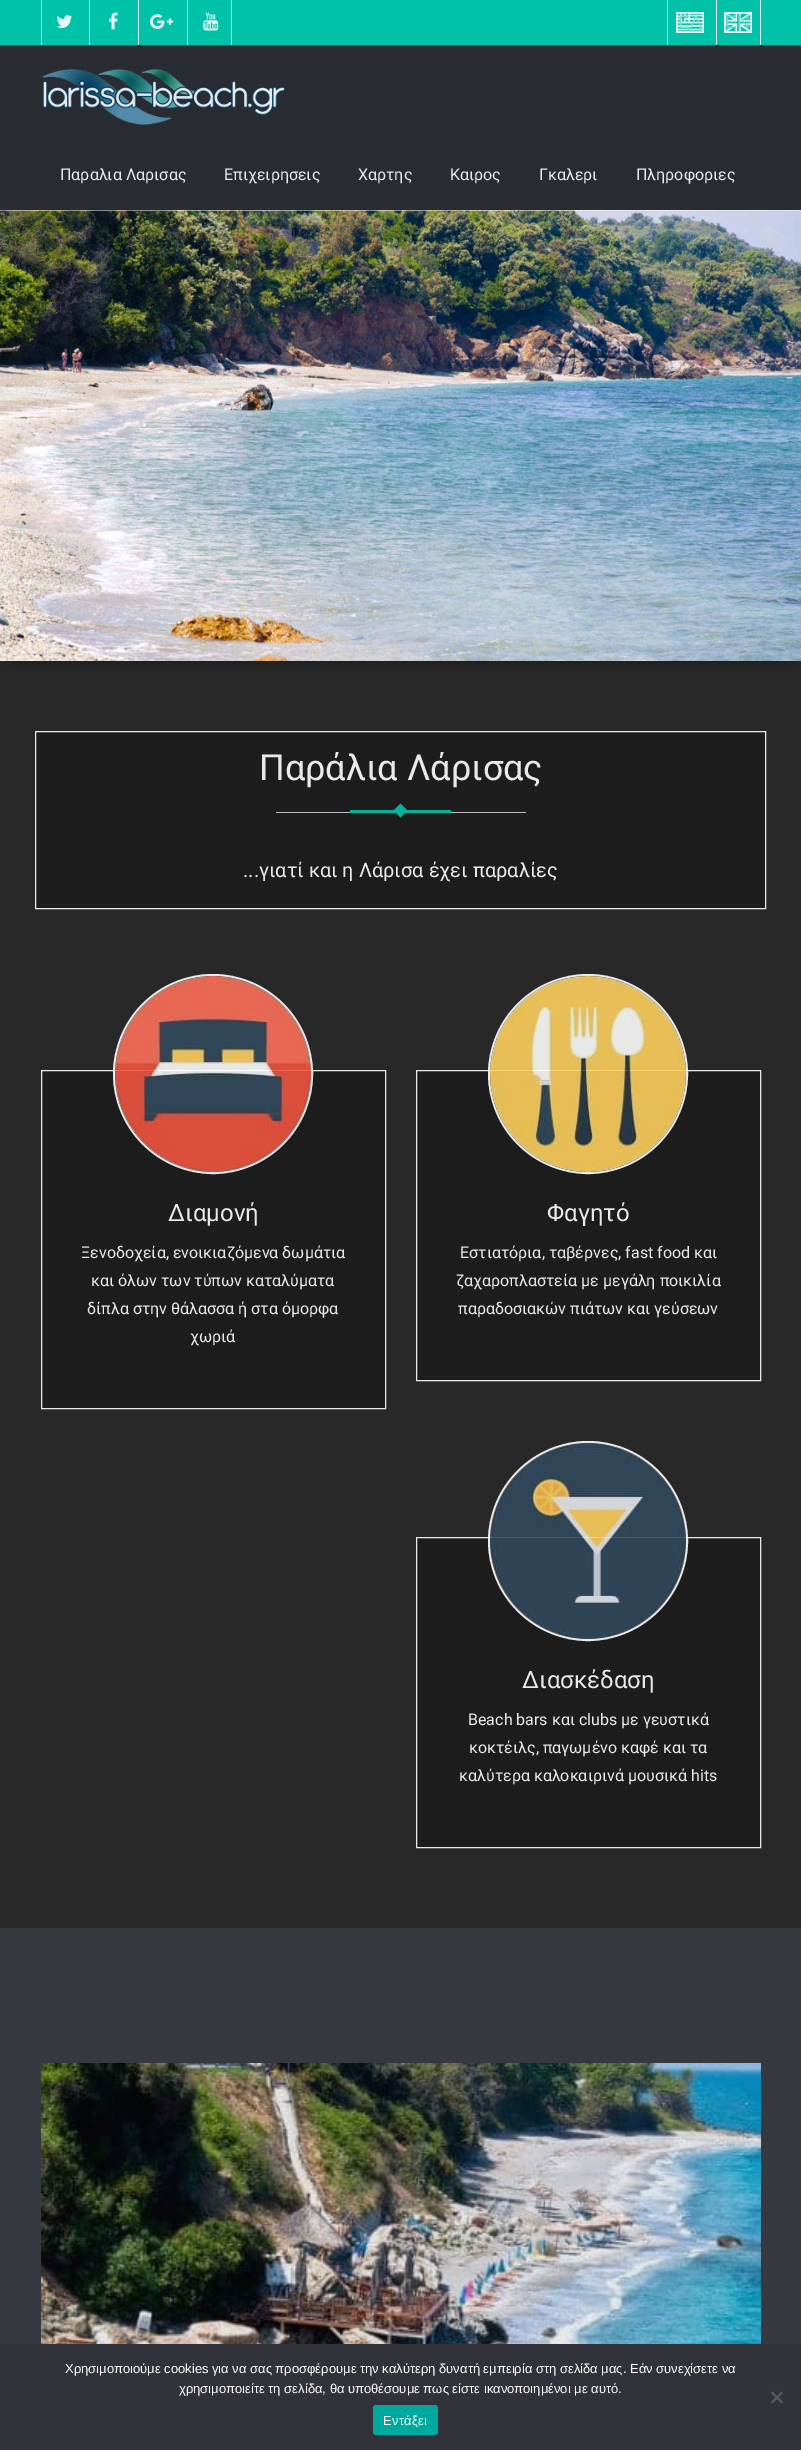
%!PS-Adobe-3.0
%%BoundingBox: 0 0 801 2450
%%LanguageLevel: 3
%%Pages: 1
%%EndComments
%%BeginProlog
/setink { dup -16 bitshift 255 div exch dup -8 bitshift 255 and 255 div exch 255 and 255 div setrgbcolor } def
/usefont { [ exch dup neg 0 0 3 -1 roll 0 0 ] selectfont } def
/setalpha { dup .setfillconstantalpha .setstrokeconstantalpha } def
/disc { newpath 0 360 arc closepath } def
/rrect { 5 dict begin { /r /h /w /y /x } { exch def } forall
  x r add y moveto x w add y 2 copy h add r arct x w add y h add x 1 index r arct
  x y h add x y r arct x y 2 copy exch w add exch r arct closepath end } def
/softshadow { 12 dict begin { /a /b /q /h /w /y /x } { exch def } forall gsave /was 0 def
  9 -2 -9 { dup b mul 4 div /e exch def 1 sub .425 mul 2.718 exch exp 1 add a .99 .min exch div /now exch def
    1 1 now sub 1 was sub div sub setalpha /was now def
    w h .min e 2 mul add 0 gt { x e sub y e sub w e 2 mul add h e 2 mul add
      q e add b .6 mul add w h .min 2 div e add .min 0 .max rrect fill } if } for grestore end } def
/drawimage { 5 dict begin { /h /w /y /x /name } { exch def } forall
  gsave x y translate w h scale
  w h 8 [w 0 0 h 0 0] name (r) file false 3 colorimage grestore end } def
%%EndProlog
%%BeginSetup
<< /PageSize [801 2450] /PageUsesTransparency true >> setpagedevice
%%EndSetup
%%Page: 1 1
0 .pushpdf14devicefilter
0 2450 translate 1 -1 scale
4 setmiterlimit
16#282828 setink
0 0 801 2450 rectfill
16#00C2A9 setink
0 0 801 45 rectfill
16#E6F9F6 setink
41 0 1 45 rectfill
(img1.raw) 56 15 17 13 drawimage
89 0 1 45 rectfill
(img2.raw) 108 12 10 18 drawimage
138 0 1 45 rectfill
(img3.raw) 150 14 24 15 drawimage
231 0 1 45 rectfill
187 0 1 45 rectfill
(img4.raw) 203 12 16 19 drawimage
(img5.raw) 676 12 28 21 drawimage
667 0 1 45 rectfill
/LiberationSans-Regular 18 usefont
16#80DFD2 setink
678 28 moveto (ΕΛ) show
(img6.raw) 724 12 28 21 drawimage
16#E6F9F6 setink
760 0 1 45 rectfill
716 0 1 45 rectfill
16#6ADBCC setink
725 28 moveto (EN) show
16#2A2C33 setink
0 45 801 165 rectfill
(img7.raw) 42 69 244 56 drawimage
/Roboto-Regular 16 usefont
16#EAEAEA setink
[
    [(Παραλια Λαρισας) 60 180]
    [(Επιχειρησεις) 224 180]
    [(Χαρτης) 358 180]
    [(Καιρος) 450 180]
    [(Γκαλερι) 539 180]
    [(Πληροφοριες) 636 180]
] { aload pop moveto show } forall
16#000000 setink
10 227 781 431 0 5 1 softshadow
(img8.raw) 0 210 801 451 drawimage
16#1D1D1D setink
35.5 731.5 moveto 765.5 731.5 lineto 765.5 908.5 lineto 35.5 908.5 lineto closepath gsave fill grestore
16#EAEAEA setink
stroke
/Roboto-Regular 36 usefont
259 780 moveto (Παράλια Λάρισας) show
16#BCBCBC setink
276 812 250 1 rectfill
16#04B39C setink
350 810 101 3 rectfill
400.5 803.5 moveto 407.5 810.5 lineto 400.5 817.5 lineto 393.5 810.5 lineto closepath fill
/Roboto-Regular 20 usefont
16#EAEAEA setink
243 877 moveto (...γιατί και η Λάρισα έχει παραλίες) show
16#1D1D1D setink
41.5 1070.5 moveto 385.5 1070.5 lineto 385.5 1408.5 lineto 41.5 1408.5 lineto closepath gsave fill grestore
16#EAEAEA setink
stroke
2 setlinewidth
213 1074 99 disc stroke
(img9.raw) 115 976 196 196 drawimage
/Roboto-Regular 24 usefont
168 1221 moveto (Διαμονή) show
/Roboto-Regular 16 usefont
[
    [(Ξενοδοχεία, ενοικιαζόμενα δωμάτια) 81 1258]
    [(και όλων των τύπων καταλύματα) 91 1286]
    [(δίπλα στην θάλασσα ή στα όμορφα) 87 1314]
    [(χωριά) 190 1342]
] { aload pop moveto show } forall
16#1D1D1D setink
416.5 1070.5 moveto 760.5 1070.5 lineto 760.5 1380.5 lineto 416.5 1380.5 lineto closepath gsave fill grestore
16#EAEAEA setink
1 setlinewidth
stroke
2 setlinewidth
588 1074 99 disc stroke
(img10.raw) 490 976 196 196 drawimage
/Roboto-Regular 24 usefont
547 1221 moveto (Φαγητό) show
/Roboto-Regular 16 usefont
[
    [(Εστιατόρια, ταβέρνες, fast food και) 460 1258]
    [(ζαχαροπλαστεία με μεγάλη ποικιλία) 456 1286]
    [(παραδοσιακών πιάτων και γεύσεων) 458 1314]
] { aload pop moveto show } forall
16#1D1D1D setink
416.5 1537.5 moveto 760.5 1537.5 lineto 760.5 1847.5 lineto 416.5 1847.5 lineto closepath gsave fill grestore
16#EAEAEA setink
1 setlinewidth
stroke
2 setlinewidth
588 1541 99 disc stroke
(img11.raw) 490 1443 196 196 drawimage
/Roboto-Regular 24 usefont
522 1688 moveto (Διασκέδαση) show
/Roboto-Regular 16 usefont
[
    [(Beach bars και clubs με γευστικά) 468 1725]
    [(κοκτέιλς, παγωμένο καφέ και τα) 469 1753]
    [(καλύτερα καλοκαιρινά μουσικά hits) 459 1781]
] { aload pop moveto show } forall
16#373941 setink
0 1928 801 416 rectfill
(img12.raw) 41 2063 720 281 drawimage
16#32323A setink
0 2344 801 106 rectfill
/LiberationSans-Regular 13 usefont
16#FFFFFF setink
65 2373 moveto (Χρησιμοποιούμε cookies για να σας προσφέρουμε την καλύτερη δυνατή εμπειρία στη σελίδα μας. Εάν συνεχίσετε να) show
179 2393 moveto (χρησιμοποιείτε τη σελίδα, θα υποθέσουμε πως είστε ικανοποιημένοι με αυτό.) show
16#59595D setink
781.5 2391.5 moveto 783 2393 lineto 772.5 2403.5 lineto 771 2402 lineto closepath fill
771 2393 moveto 772.5 2391.5 lineto 783 2402 lineto 781.5 2403.5 lineto closepath fill
16#00A99D setink
373 2405 65 30 3 rrect fill
16#FFFFFF setink
383 2425 moveto 0.25 0 (Εντάξει) ashow
.poppdf14devicefilter showpage
%%EOF
